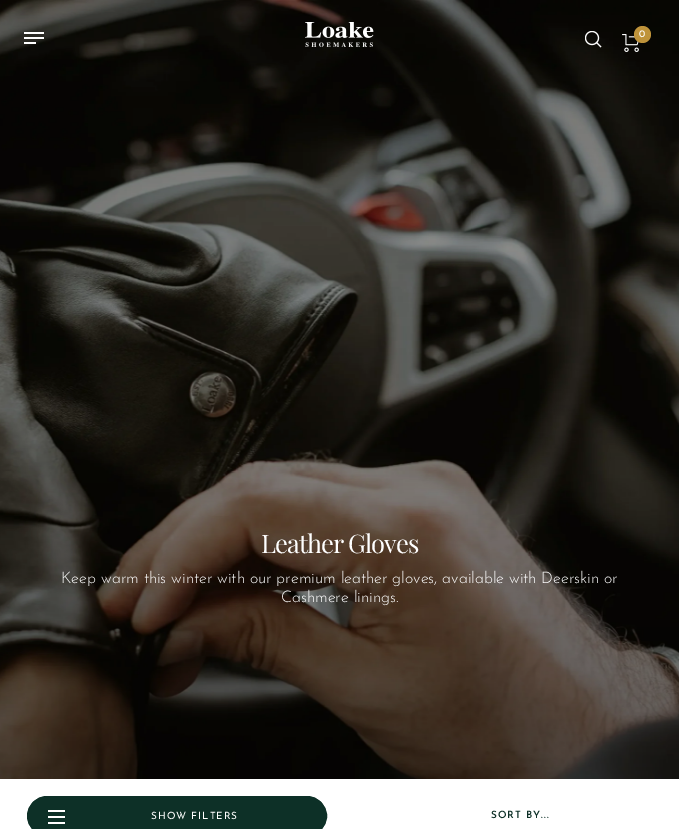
%!PS-Adobe-3.0
%%BoundingBox: 0 0 679 829
%%LanguageLevel: 3
%%Pages: 1
%%EndComments
%%BeginProlog
/setink { dup -16 bitshift 255 div exch dup -8 bitshift 255 and 255 div exch 255 and 255 div setrgbcolor } def
/usefont { [ exch dup neg 0 0 3 -1 roll 0 0 ] selectfont } def
/disc { newpath 0 360 arc closepath } def
/rrect { 5 dict begin { /r /h /w /y /x } { exch def } forall
  x r add y moveto x w add y 2 copy h add r arct x w add y h add x 1 index r arct
  x y h add x y r arct x y 2 copy exch w add exch r arct closepath end } def
/drawimage { 5 dict begin { /h /w /y /x /name } { exch def } forall
  gsave x y translate w h scale
  w h 8 [w 0 0 h 0 0] name (r) file false 3 colorimage grestore end } def
%%EndProlog
%%BeginSetup
<< /PageSize [679 829] >> setpagedevice
%%EndSetup
%%Page: 1 1
0 829 translate 1 -1 scale
4 setmiterlimit
16#FFFFFF setink
0 0 679 829 rectfill
(img4.raw) 0 0 679 779 drawimage
[
    [24 32 20 2 16#FFFFFF]
    [24 37 20 2 16#FFFFFF]
    [24 42 12 2 16#FFFFFF]
] { aload pop setink rectfill } forall
(img1.raw) 305 22 69 25 drawimage
(img2.raw) 585 31 17 17 drawimage
(img3.raw) 622 34 17 18 drawimage
16#BF933A setink
642.5 34.5 8.5 disc fill
/JosefinSans-Regular 10 usefont
16#FFFFFF setink
639 37 moveto (0) show
/PlayfairDisplay-Regular 25.5 usefont
261 553 moveto -1 0 (Leather Gloves) ashow
/JosefinSans-Light 16 usefont
61 583 moveto (Keep warm this winter with our premium leather gloves, available with Deerskin or) show
281 602 moveto (Cashmere linings.) show
16#0D3027 setink
27.5 796.5 299 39 19.5 rrect gsave fill grestore
stroke
[
    [48 816 17 2 16#FFFFFF]
    [48 810 17 2 16#FFFFFF]
    [48 822 17 2 16#FFFFFF]
] { aload pop setink rectfill } forall
/JosefinSans-Regular 10 usefont
151 819 moveto 1 0 (SHOW FILTERS) ashow
/JosefinSans-SemiBold 10 usefont
16#0D3027 setink
491 818 moveto 1 0 (SORT BY...) ashow
showpage
%%EOF
